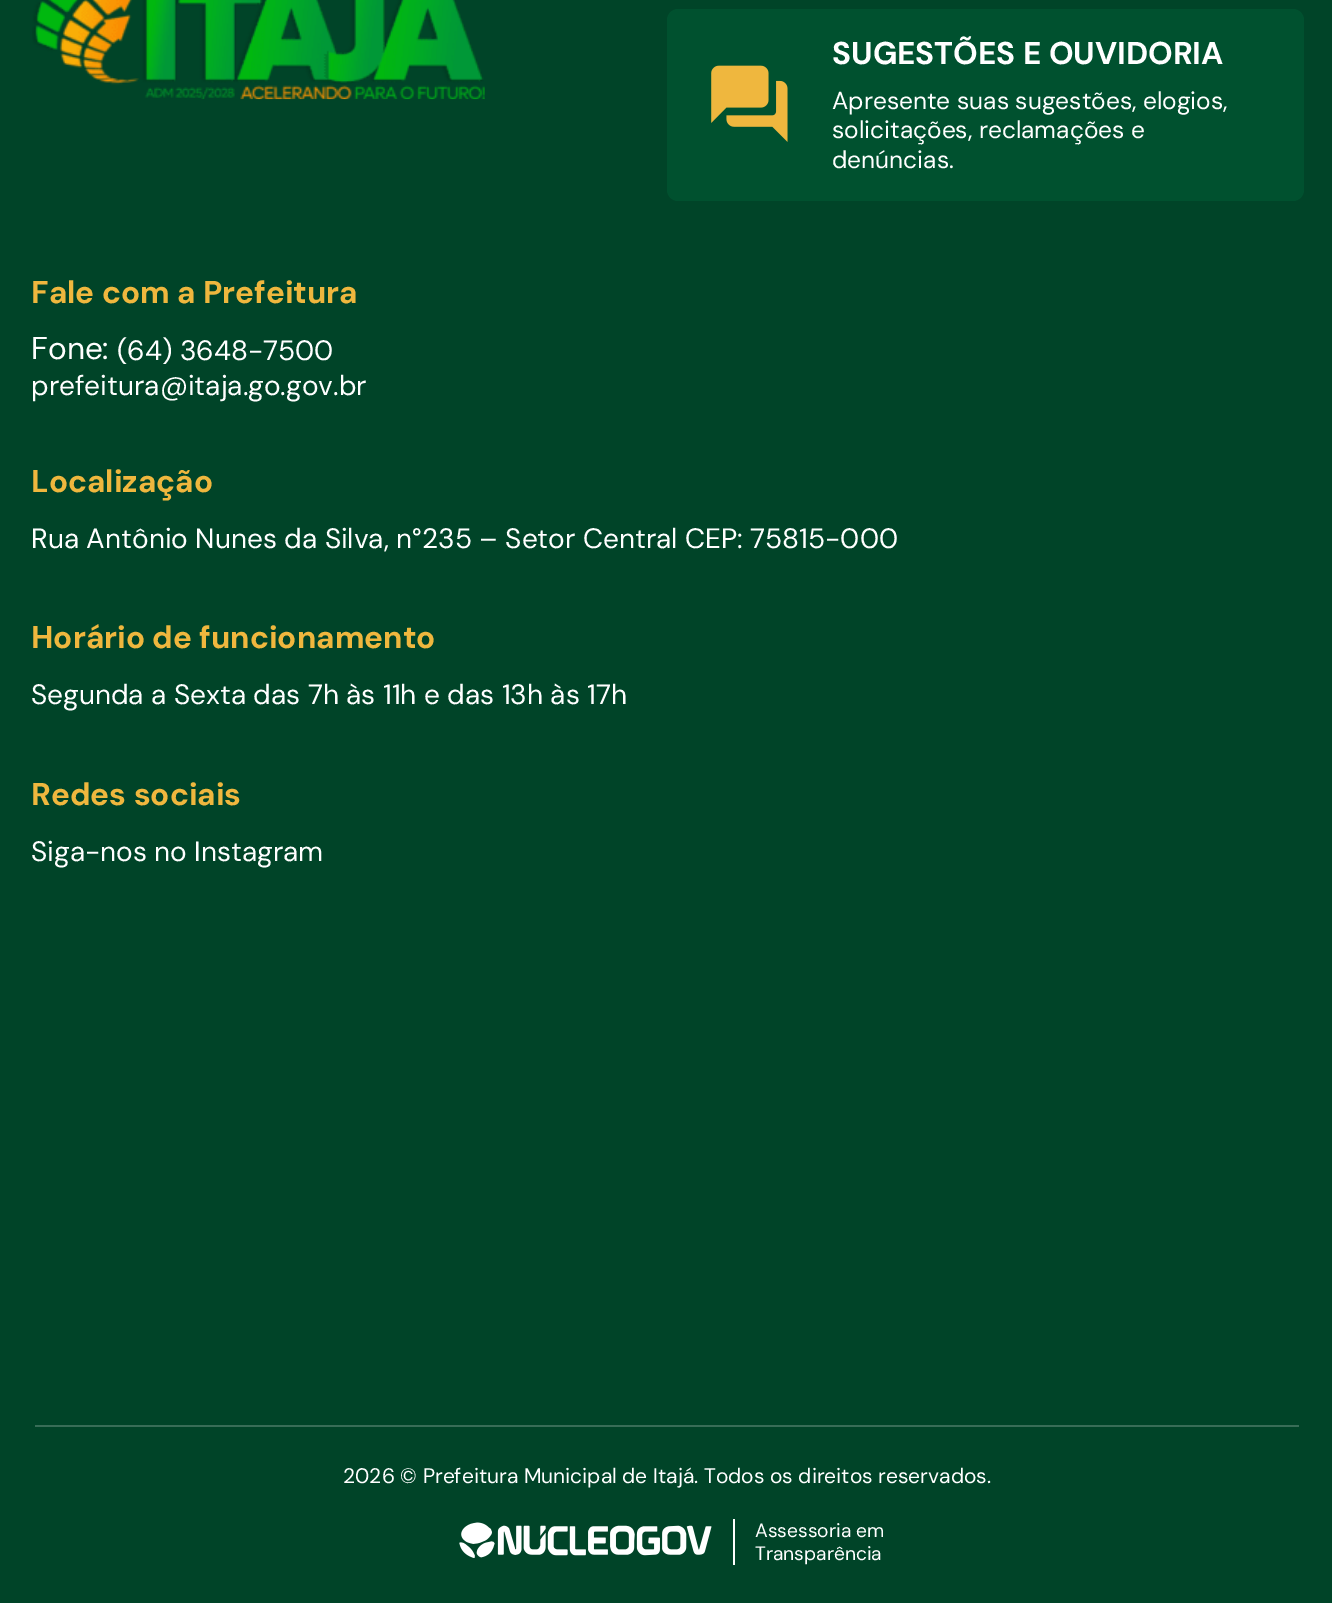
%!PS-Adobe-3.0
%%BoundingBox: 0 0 1332 1603
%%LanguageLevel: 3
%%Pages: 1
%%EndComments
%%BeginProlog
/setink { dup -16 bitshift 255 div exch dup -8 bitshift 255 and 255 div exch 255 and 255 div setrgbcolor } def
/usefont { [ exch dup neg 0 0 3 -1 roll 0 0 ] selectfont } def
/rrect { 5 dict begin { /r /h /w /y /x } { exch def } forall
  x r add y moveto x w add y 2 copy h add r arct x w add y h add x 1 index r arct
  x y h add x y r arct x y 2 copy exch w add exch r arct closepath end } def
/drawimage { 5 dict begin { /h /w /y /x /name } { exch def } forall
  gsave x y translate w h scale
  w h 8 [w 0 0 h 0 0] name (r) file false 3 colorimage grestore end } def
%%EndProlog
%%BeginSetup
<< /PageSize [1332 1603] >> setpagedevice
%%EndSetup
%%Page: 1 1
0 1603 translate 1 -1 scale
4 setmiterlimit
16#004428 setink
0 0 1332 1603 rectfill
(img1.raw) 32 0 453 100 drawimage
16#00512F setink
667 9 637 192 11 rrect fill
(img2.raw) 711 65 77 77 drawimage
/DMSans-Bold 31.5 usefont
16#FFFFFF setink
832 64 moveto (SUGESTÕES E OUVIDORIA) show
/DMSans-Regular 24.5 usefont
[
    [(Apresente suas sugestões, elogios,) 832 109]
    [(solicitações, reclamações e) 832 138]
    [(denúncias.) 832 168]
] { aload pop moveto show } forall
/DMSans-Bold 31.5 usefont
16#EFB73E setink
31 303 moveto (Fale com a Prefeitura) show
/DMSans-Regular 31.5 usefont
16#FFFFFF setink
31 359 moveto (Fone:) show
/DMSans-Regular 28 usefont
117 360 moveto (\(64\) 3648-7500) show
31 395 moveto (prefeitura@itaja.go.gov.br) show
/DMSans-Bold 31.5 usefont
16#EFB73E setink
31 492 moveto (Localização) show
/DMSans-Regular 28 usefont
16#FFFFFF setink
31 548 moveto (Rua Antônio Nunes da Silva, n°235 – Setor Central CEP: 75815-000) show
/DMSans-Bold 31.5 usefont
16#EFB73E setink
31 648 moveto (Horário de funcionamento) show
/DMSans-Regular 28 usefont
16#FFFFFF setink
31 704 moveto (Segunda a Sexta das 7h às 11h e das 13h às 17h) show
/DMSans-Bold 31.5 usefont
16#EFB73E setink
31 805 moveto (Redes sociais) show
/DMSans-Regular 28 usefont
16#FFFFFF setink
31 861 moveto (Siga-nos no Instagram) show
16#386D57 setink
35 1425 1264 2 rectfill
/DMSans-Regular 21 usefont
16#FFFFFF setink
343 1483 moveto (2026 © Prefeitura Municipal de Itajá. Todos os direitos reservados.) show
(img3.raw) 459 1522 253 36 drawimage
733 1519 2 46 rectfill
/DMSans-Regular 19.25 usefont
755 1537 moveto (Assessoria em) show
755 1560 moveto (Transparência) show
showpage
%%EOF
